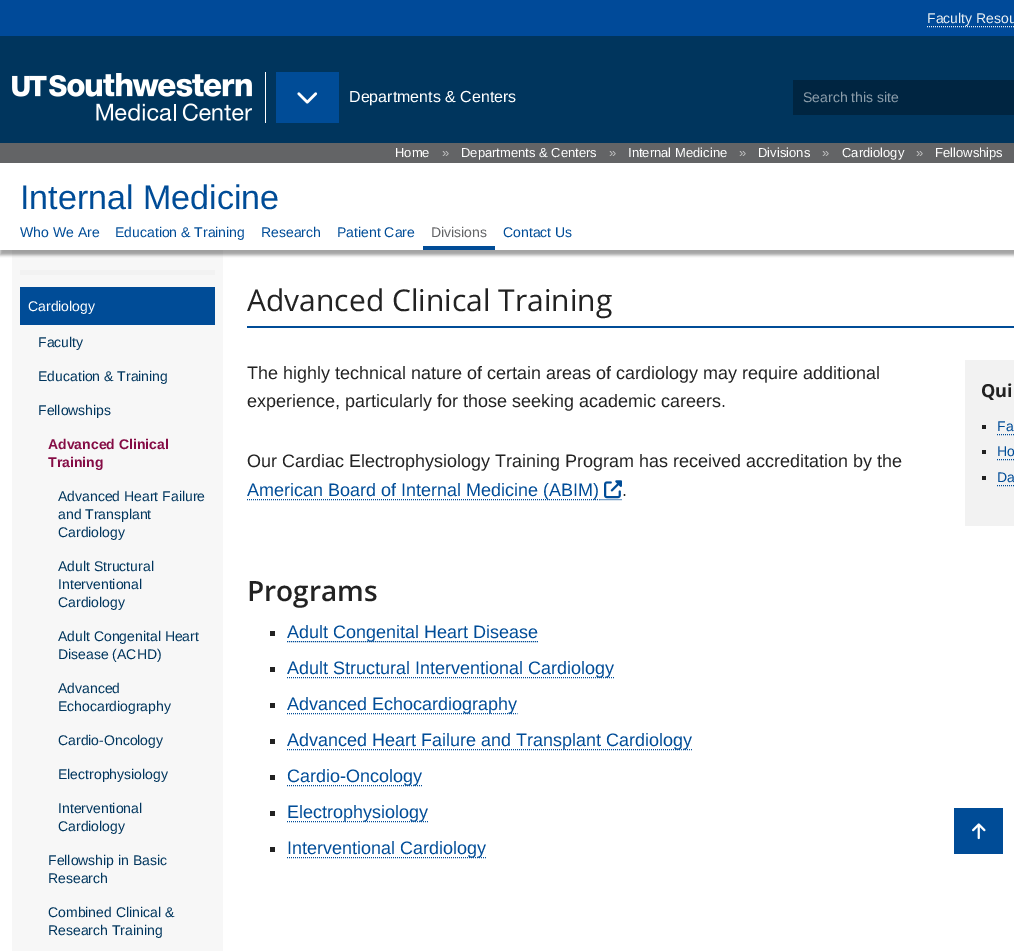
%!PS-Adobe-3.0
%%BoundingBox: 0 0 1014 951
%%LanguageLevel: 3
%%Pages: 1
%%EndComments
%%BeginProlog
/setink { dup -16 bitshift 255 div exch dup -8 bitshift 255 and 255 div exch 255 and 255 div setrgbcolor } def
/usefont { [ exch dup neg 0 0 3 -1 roll 0 0 ] selectfont } def
/setalpha { dup .setfillconstantalpha .setstrokeconstantalpha } def
/rrect { 5 dict begin { /r /h /w /y /x } { exch def } forall
  x r add y moveto x w add y 2 copy h add r arct x w add y h add x 1 index r arct
  x y h add x y r arct x y 2 copy exch w add exch r arct closepath end } def
/softshadow { 12 dict begin { /a /b /q /h /w /y /x } { exch def } forall gsave /was 0 def
  9 -2 -9 { dup b mul 4 div /e exch def 1 sub .425 mul 2.718 exch exp 1 add a .99 .min exch div /now exch def
    1 1 now sub 1 was sub div sub setalpha /was now def
    w h .min e 2 mul add 0 gt { x e sub y e sub w e 2 mul add h e 2 mul add
      q e add b .6 mul add w h .min 2 div e add .min 0 .max rrect fill } if } for grestore end } def
/drawimage { 5 dict begin { /h /w /y /x /name } { exch def } forall
  gsave x y translate w h scale
  w h 8 [w 0 0 h 0 0] name (r) file false 3 colorimage grestore end } def
%%EndProlog
%%BeginSetup
<< /PageSize [1014 951] /PageUsesTransparency true >> setpagedevice
%%EndSetup
%%Page: 1 1
0 .pushpdf14devicefilter
0 951 translate 1 -1 scale
4 setmiterlimit
16#FFFFFF setink
0 0 1014 951 rectfill
16#00355D setink
0 36 1014 107 rectfill
16#004A99 setink
0 0 1014 36 rectfill
/LiberationSans-Regular 14 usefont
16#EBF0F3 setink
927 23 moveto (Faculty Resou) show
[1 1] 0 setdash
927 26.5 moveto 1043 26.5 lineto stroke
(img1.raw) 12 73 240 48 drawimage
16#FFFFFF setink
265 72 1 51 rectfill
16#004C97 setink
276 72 63 51 rectfill
(img2.raw) 297 92 21 12 drawimage
/LiberationSans-Regular 16 usefont
16#FFFFFF setink
349 102 moveto (Departments & Centers) show
16#002541 setink
793 80 221 35 rectfill
/LiberationSans-Regular 14 usefont
16#8C9DAA setink
803 102 moveto (Search this site) show
16#636466 setink
0 143 1014 20 rectfill
/LiberationSans-Regular 13 usefont
16#FFFFFF setink
395 157 moveto (Home) show
16#C1C1C2 setink
442 157 moveto (») show
16#FFFFFF setink
461 157 moveto (Departments & Centers) show
16#C1C1C2 setink
609 157 moveto (») show
16#FFFFFF setink
628 157 moveto (Internal Medicine) show
16#C1C1C2 setink
739 157 moveto (») show
16#FFFFFF setink
758 157 moveto (Divisions) show
16#C1C1C2 setink
822 157 moveto (») show
16#FFFFFF setink
842 157 moveto (Cardiology) show
16#C1C1C2 setink
916 157 moveto (») show
16#FFFFFF setink
935 157 moveto (Fellowships) show
16#F7F7F7 setink
12 250 211 701 rectfill
gsave
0 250 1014 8 rectclip
16#474747 setink
0 168 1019 87 0 1.5 0.5 softshadow
grestore
/LiberationSans-Regular 34 usefont
16#004C97 setink
20 209 moveto (Internal Medicine) show
/LiberationSans-Regular 14 usefont
[
    [(Who We Are) 20 237]
    [(Education & Training) 115 237]
    [(Research) 261 237]
    [(Patient Care) 337 237]
] { aload pop moveto show } forall
16#636466 setink
431 237 moveto (Divisions) show
16#004C97 setink
423 246 72 4 rectfill
503 237 moveto (Contact Us) show
16#F2F2F2 setink
20 270 195 5 rectfill
16#004C97 setink
20 287 195 38 rectfill
16#FFFFFF setink
28 311 moveto (Cardiology) show
16#00355D setink
[
    [(Faculty) 38 347]
    [(Education & Training) 38 381]
    [(Fellowships) 38 415]
] { aload pop moveto show } forall
/LiberationSans-Bold 14 usefont
16#850C45 setink
48 449 moveto (Advanced Clinical) show
48 467 moveto (Training) show
/LiberationSans-Regular 14 usefont
16#00355D setink
[
    [(Advanced Heart Failure) 58 501]
    [(and Transplant) 58 519]
    [(Cardiology) 58 537]
    [(Adult Structural) 58 571]
    [(Interventional) 58 589]
    [(Cardiology) 58 607]
    [(Adult Congenital Heart) 58 641]
    [(Disease \(ACHD\)) 58 659]
    [(Advanced) 58 693]
    [(Echocardiography) 58 711]
    [(Cardio-Oncology) 58 745]
    [(Electrophysiology) 58 779]
    [(Interventional) 58 813]
    [(Cardiology) 58 831]
    [(Fellowship in Basic) 48 865]
    [(Research) 48 883]
    [(Combined Clinical &) 48 917]
    [(Research Training) 48 935]
] { aload pop moveto show } forall
16#004C97 setink
247 326 767 2 rectfill
/OpenSans-Regular 30 usefont
16#222222 setink
247 311 moveto (Advanced Clinical Training) show
/LiberationSans-Regular 18 usefont
[
    [(The highly technical nature of certain areas of cardiology may require additional) 247 379]
    [(experience, particularly for those seeking academic careers.) 247 407]
    [(Our Cardiac Electrophysiology Training Program has received accreditation by the) 247 467]
] { aload pop moveto show } forall
16#004C97 setink
247 499.5 moveto 599.5 499.5 lineto stroke
247 496 moveto (American Board of Internal Medicine \(ABIM\)) show
599.5 499.5 moveto 622 499.5 lineto stroke
(img3.raw) 604 480 18 19 drawimage
16#222222 setink
622 496 moveto (.) show
/OpenSans-SemiBold 28 usefont
247 601 moveto (Programs) show
270 631 5 5 rectfill
16#004C97 setink
287 641.5 moveto 538.5 641.5 lineto stroke
/LiberationSans-Regular 18 usefont
287 638 moveto (Adult Congenital Heart Disease) show
16#222222 setink
270 667 5 5 rectfill
16#004C97 setink
287 677.5 moveto 614.5 677.5 lineto stroke
287 674 moveto (Adult Structural Interventional Cardiology) show
16#222222 setink
270 703 5 5 rectfill
16#004C97 setink
287 713.5 moveto 517.5 713.5 lineto stroke
287 710 moveto (Advanced Echocardiography) show
16#222222 setink
270 739 5 5 rectfill
16#004C97 setink
287 749.5 moveto 692.5 749.5 lineto stroke
287 746 moveto (Advanced Heart Failure and Transplant Cardiology) show
16#222222 setink
270 775 5 5 rectfill
16#004C97 setink
287 785.5 moveto 422 785.5 lineto stroke
287 782 moveto (Cardio-Oncology) show
16#222222 setink
270 811 5 5 rectfill
16#004C97 setink
287 821.5 moveto 428.5 821.5 lineto stroke
287 818 moveto (Electrophysiology) show
16#222222 setink
270 847 5 5 rectfill
16#004C97 setink
287 857.5 moveto 486.5 857.5 lineto stroke
287 854 moveto (Interventional Cardiology) show
16#F2F2F2 setink
965 360 49 166 rectfill
/OpenSans-Bold 18 usefont
16#222222 setink
981 397 moveto (Qui) show
982 425 4 4 rectfill
/LiberationSans-Regular 14 usefont
16#004C97 setink
997 431 moveto (Fa) show
997 434.5 moveto 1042 434.5 lineto stroke
16#222222 setink
982 450 4 4 rectfill
16#004C97 setink
997 456 moveto (Ho) show
997 459.5 moveto 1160 459.5 lineto stroke
16#222222 setink
982 476 4 4 rectfill
16#004C97 setink
997 482 moveto (Da) show
997 485.5 moveto 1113.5 485.5 lineto stroke
954 808 49 46 rectfill
(img4.raw) 972 823 14 17 drawimage
.poppdf14devicefilter showpage
%%EOF
